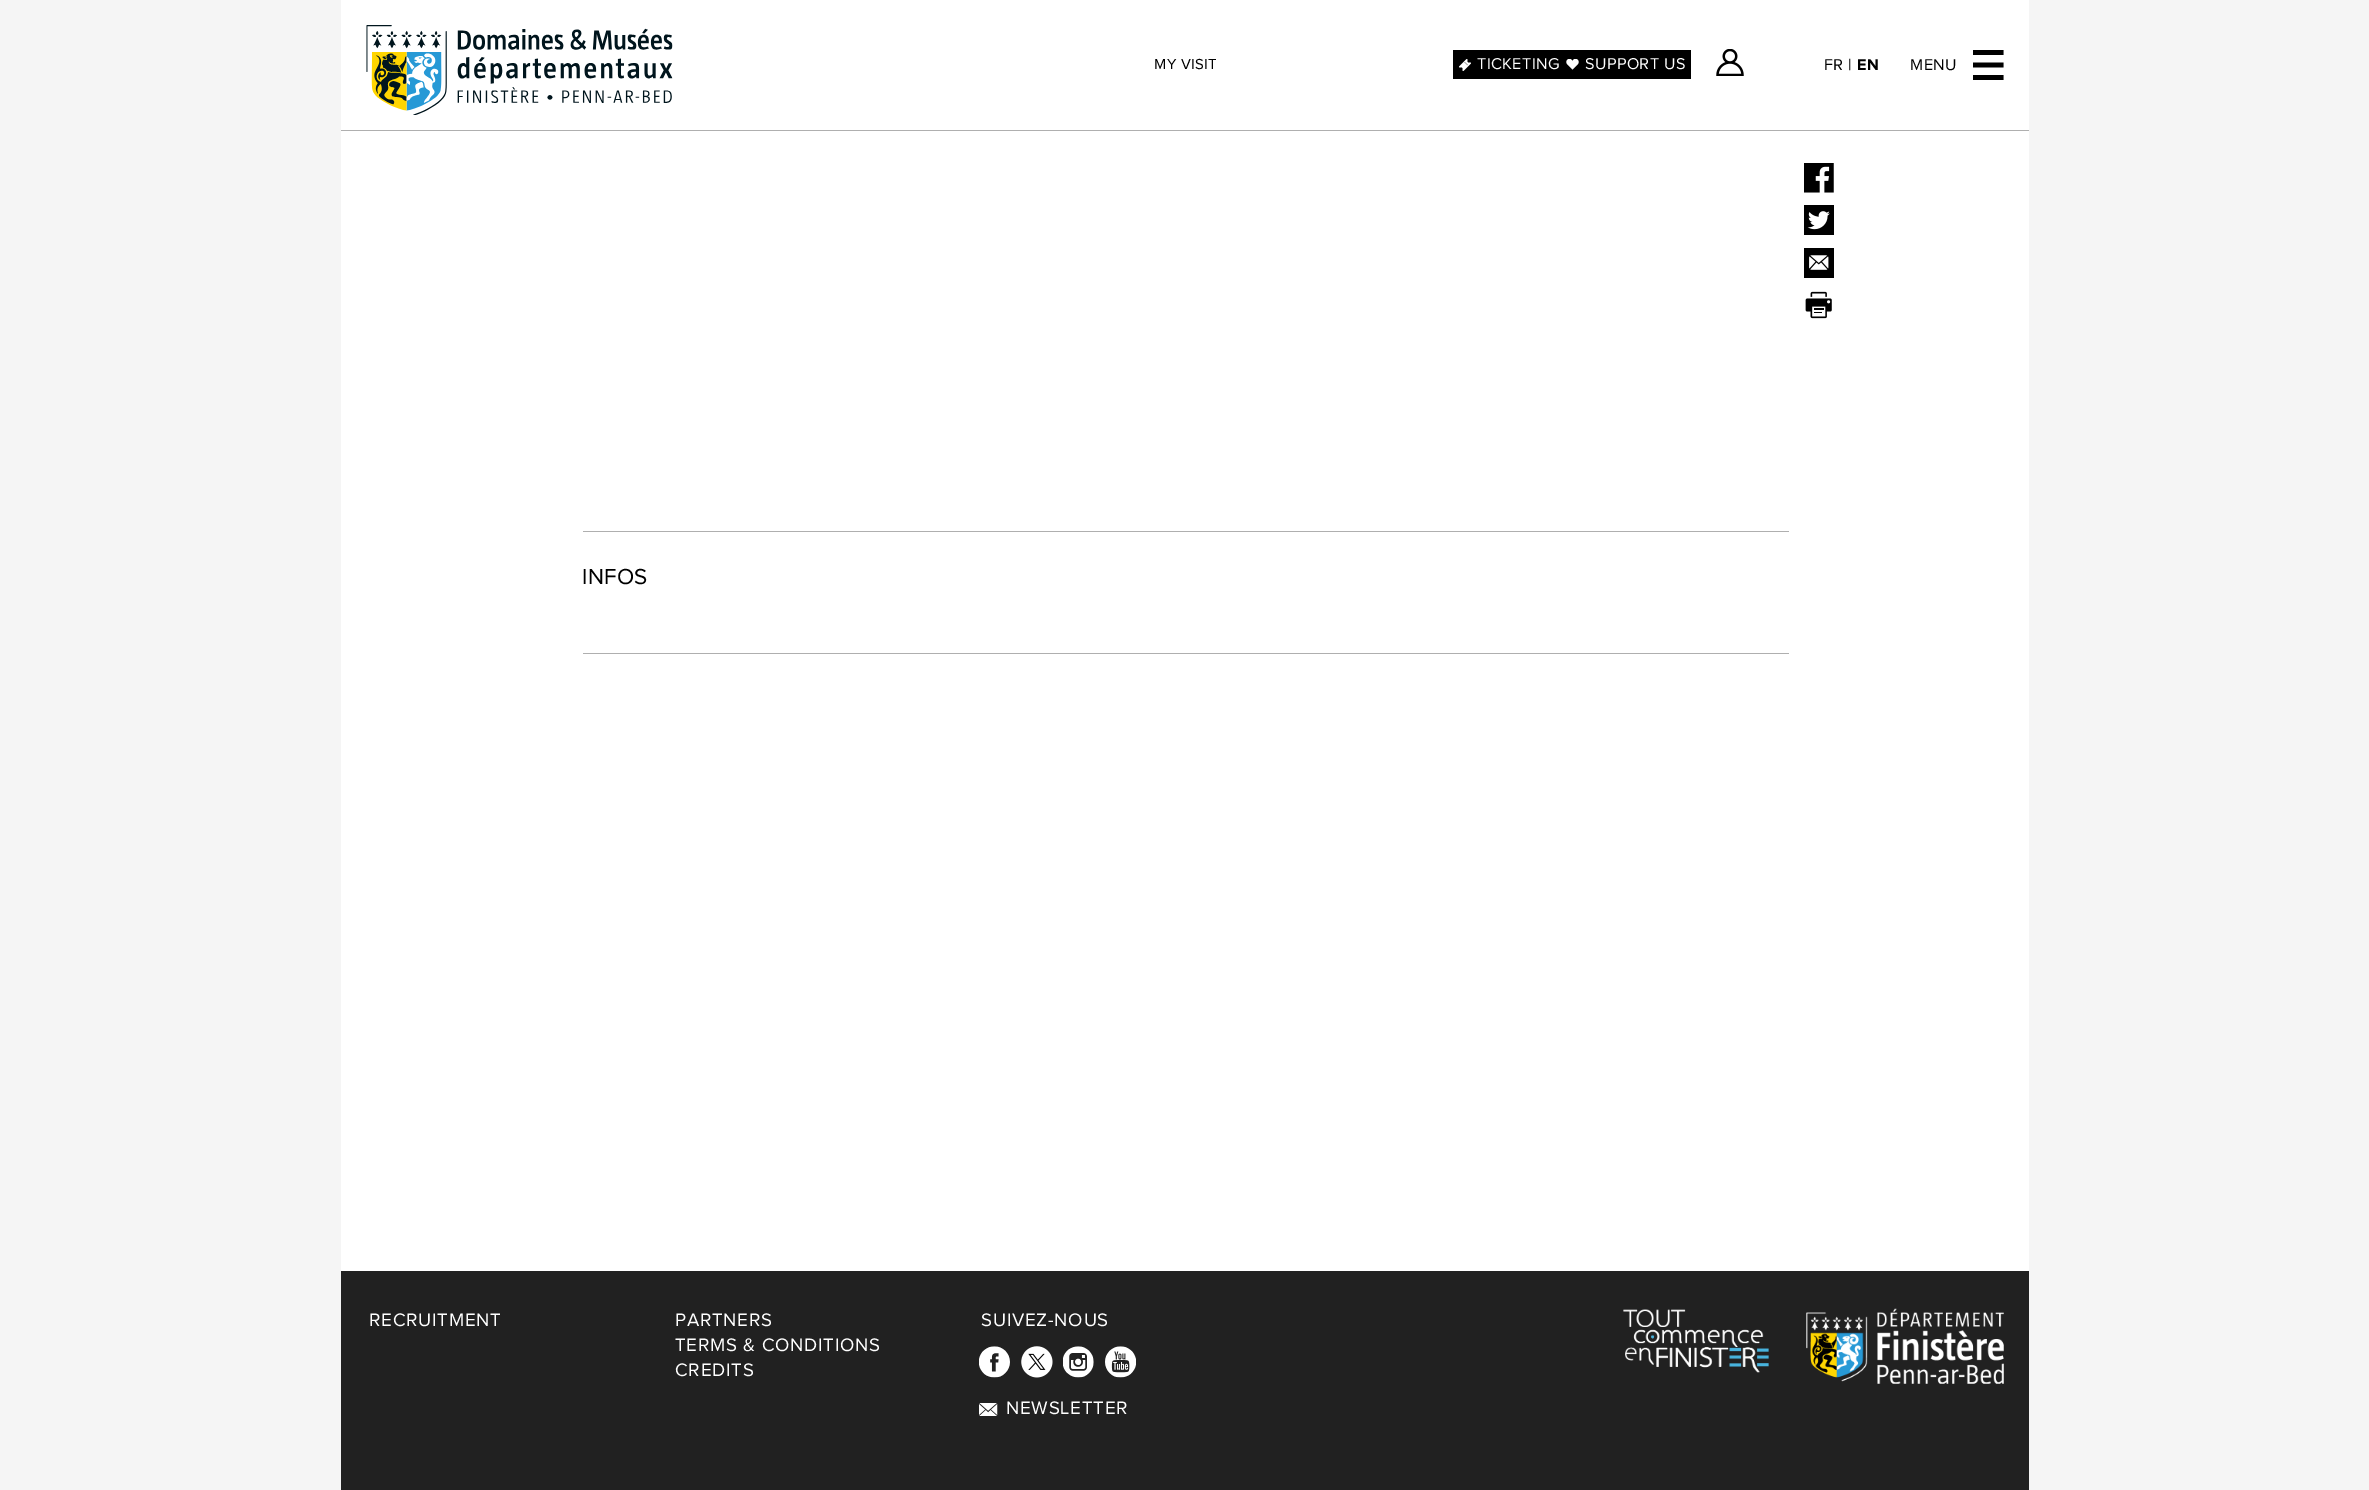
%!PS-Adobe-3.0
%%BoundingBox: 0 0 2369 1490
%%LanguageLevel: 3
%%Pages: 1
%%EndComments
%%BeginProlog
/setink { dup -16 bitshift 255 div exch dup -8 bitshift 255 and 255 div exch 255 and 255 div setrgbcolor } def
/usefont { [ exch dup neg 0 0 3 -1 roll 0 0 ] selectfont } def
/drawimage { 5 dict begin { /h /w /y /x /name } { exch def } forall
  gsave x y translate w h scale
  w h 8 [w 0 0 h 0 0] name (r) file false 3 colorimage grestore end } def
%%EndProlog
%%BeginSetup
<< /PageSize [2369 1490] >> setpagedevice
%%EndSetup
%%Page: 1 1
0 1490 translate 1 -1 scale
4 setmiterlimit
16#F5F5F5 setink
0 0 2369 1490 rectfill
[
    [341 131 1688 1140 16#FFFFFF]
    [341 0 1688 130 16#FFFFFF]
    [341 130 1688 1 16#AFAFAF]
] { aload pop setink rectfill } forall
(img1.raw) 366 25 307 90 drawimage
/ProximaNova-Regular 15 usefont
16#000000 setink
1154 69 moveto 0.4 0 (MY VISIT) ashow
1453 50 238 29 rectfill
(img2.raw) 1459 59 12 12 drawimage
/ProximaNova-Regular 16.25 usefont
16#FFFFFF setink
1477 69 moveto 0.4 0 (TICKETING) ashow
(img3.raw) 1566 59 13 11 drawimage
1585 69 moveto 0.4 0 (SUPPORT US) ashow
(img4.raw) 1716 49 28 27 drawimage
16#000000 setink
1824 70 moveto 0.4 0 (FR |) ashow
/ProximaNova-Bold 16.25 usefont
1857 70 moveto 0.4 0 (EN) ashow
(img5.raw) 1973 50 31 30 drawimage
/ProximaNova-Regular 16.25 usefont
1910 70 moveto 0.4 0 (MENU) ashow
(img6.raw) 1804 163 30 30 drawimage
(img7.raw) 1804 205 30 30 drawimage
(img8.raw) 1804 248 30 30 drawimage
(img9.raw) 1805 291 27 28 drawimage
16#AFAFAF setink
583 531 1206 1 rectfill
583 653 1206 1 rectfill
/ProximaNova-Regular 22.5 usefont
16#000000 setink
582 584 moveto 0.4 0 (INFOS) ashow
16#212121 setink
341 1271 1688 219 rectfill
/ProximaNova-Regular 18.75 usefont
16#FFFFFF setink
369 1326 moveto 0.75 0 (RECRUITMENT) ashow
675 1326 moveto 0.75 0 (PARTNERS) ashow
675 1351 moveto 0.75 0 (TERMS & CONDITIONS) ashow
675 1376 moveto 0.75 0 (CREDITS) ashow
981 1326 moveto 0.75 0 (SUIVEZ-NOUS) ashow
(img10.raw) 979 1346 31 32 drawimage
(img11.raw) 1021 1346 32 32 drawimage
(img12.raw) 1063 1346 31 32 drawimage
(img13.raw) 1105 1346 31 32 drawimage
(img14.raw) 979 1403 19 13 drawimage
1006 1414 moveto 0.75 0 (NEWSLETTER) ashow
(img15.raw) 1623 1309 146 64 drawimage
(img16.raw) 1806 1308 198 76 drawimage
showpage
%%EOF
